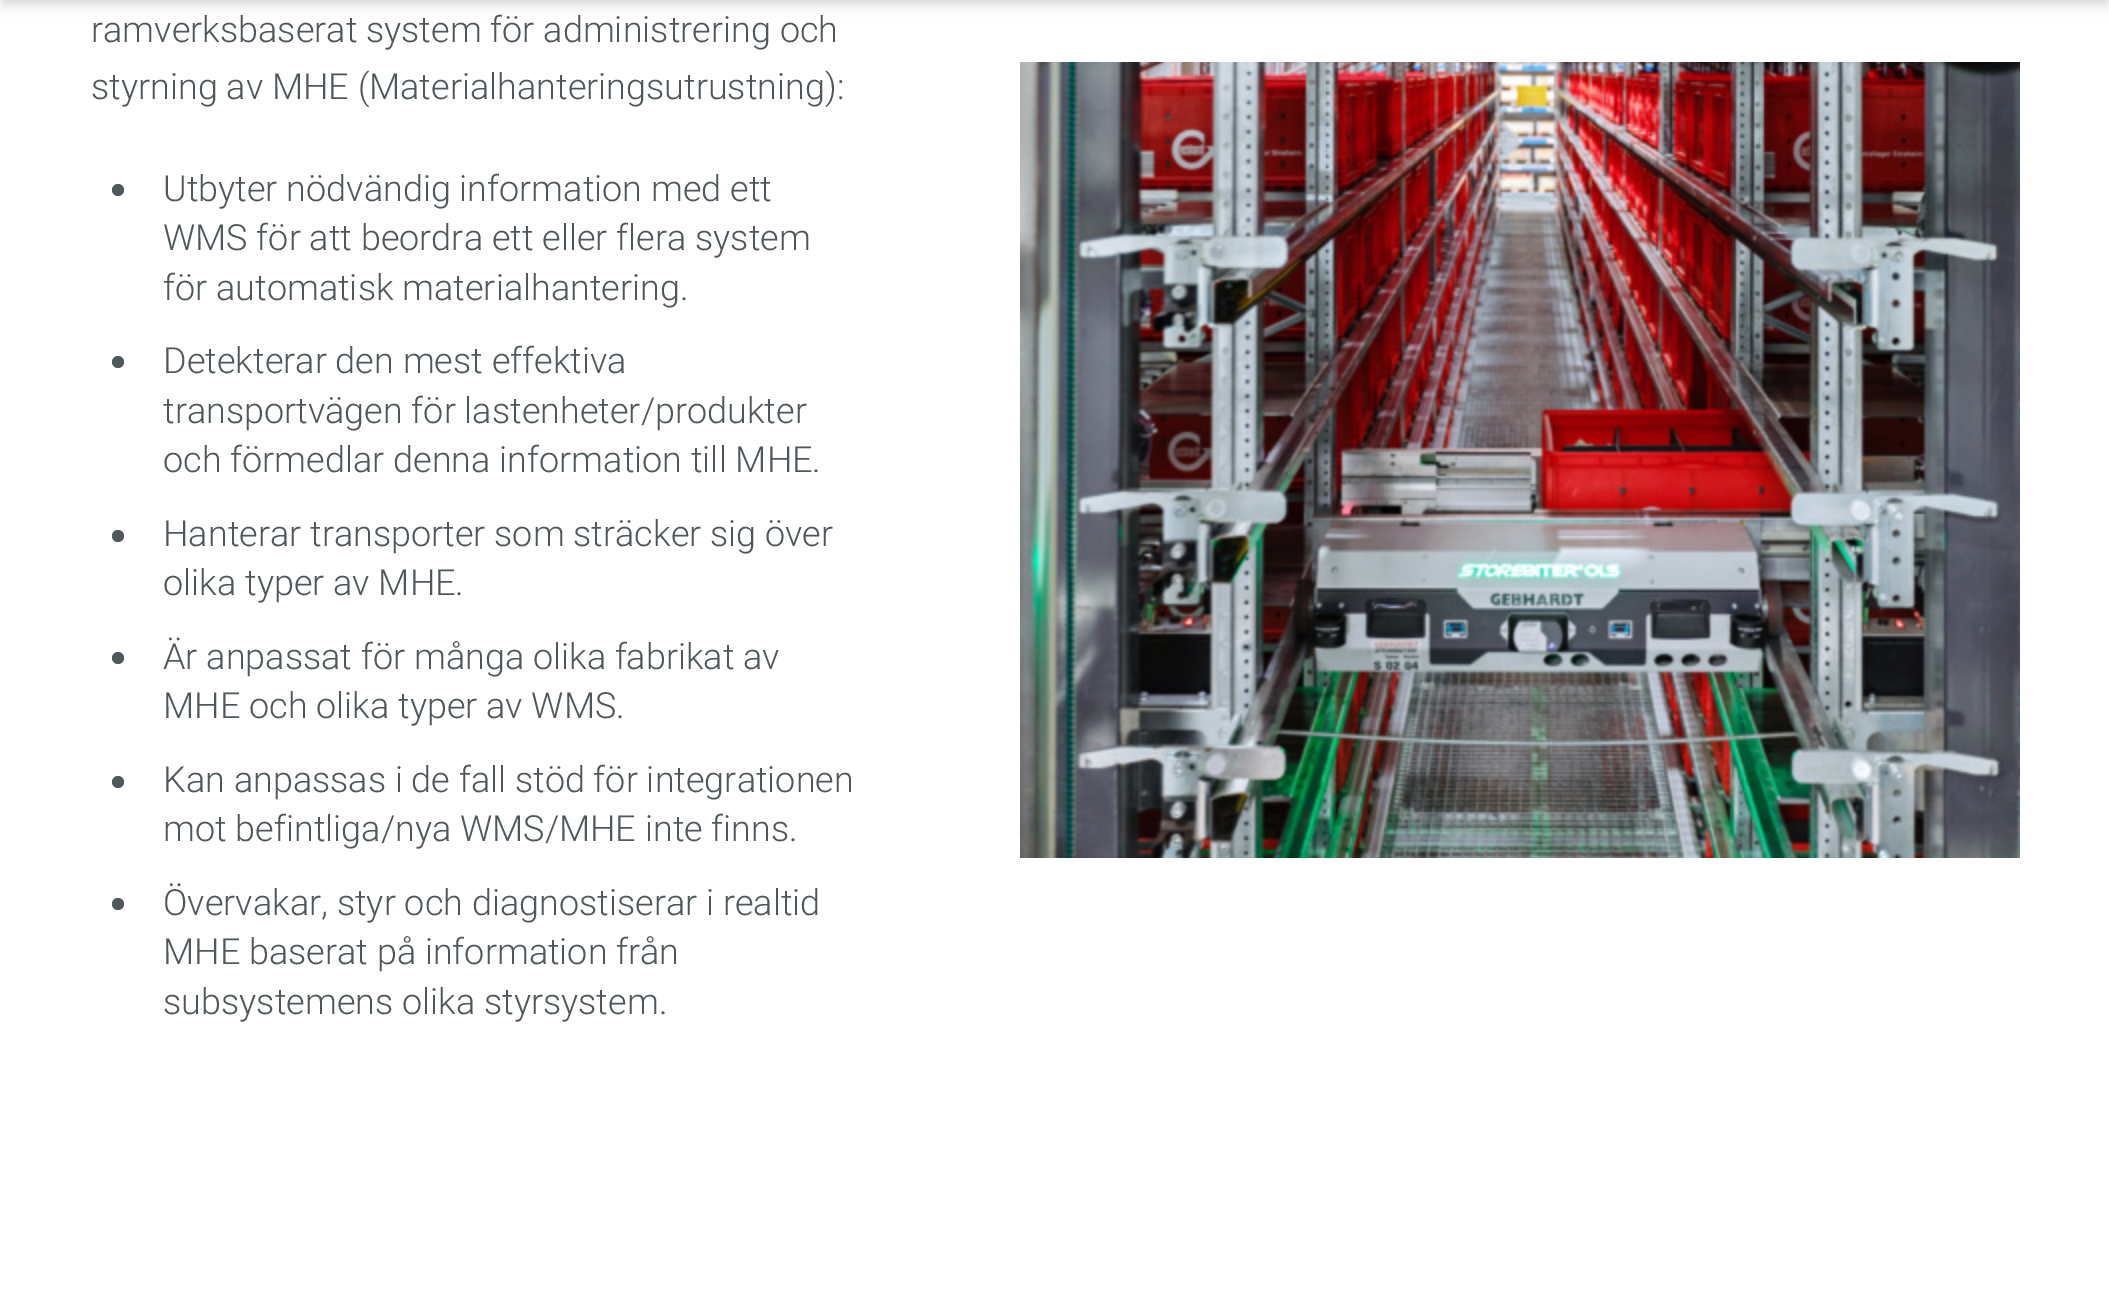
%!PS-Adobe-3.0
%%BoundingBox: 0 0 2109 1305
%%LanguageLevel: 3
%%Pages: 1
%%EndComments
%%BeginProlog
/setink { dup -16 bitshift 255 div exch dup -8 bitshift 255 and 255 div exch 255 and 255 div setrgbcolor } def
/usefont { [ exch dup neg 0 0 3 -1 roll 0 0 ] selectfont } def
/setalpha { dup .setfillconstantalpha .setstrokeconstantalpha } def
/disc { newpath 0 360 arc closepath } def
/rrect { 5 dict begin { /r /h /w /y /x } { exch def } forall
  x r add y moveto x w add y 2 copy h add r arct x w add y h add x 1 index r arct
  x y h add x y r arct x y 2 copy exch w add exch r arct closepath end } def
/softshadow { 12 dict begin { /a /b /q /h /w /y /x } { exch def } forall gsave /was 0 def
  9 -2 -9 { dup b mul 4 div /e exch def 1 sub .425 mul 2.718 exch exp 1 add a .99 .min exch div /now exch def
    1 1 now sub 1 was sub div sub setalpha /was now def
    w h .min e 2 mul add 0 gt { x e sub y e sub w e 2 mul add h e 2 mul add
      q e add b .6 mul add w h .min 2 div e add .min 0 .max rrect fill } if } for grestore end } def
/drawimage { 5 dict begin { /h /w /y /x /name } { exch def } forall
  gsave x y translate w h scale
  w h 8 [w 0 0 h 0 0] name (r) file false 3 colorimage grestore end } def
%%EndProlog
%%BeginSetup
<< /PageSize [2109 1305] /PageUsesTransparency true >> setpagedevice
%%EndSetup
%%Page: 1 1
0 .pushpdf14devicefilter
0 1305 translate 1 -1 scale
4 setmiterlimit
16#FFFFFF setink
0 0 2109 1305 rectfill
16#000000 setink
4 -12 2102 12 0 4 0.1 softshadow
2 -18 2106 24 0 6 0.1 softshadow
/Roboto-Light 36 usefont
16#4E575B setink
91 42 moveto (ramverksbaserat system för administrering och) show
91 99 moveto (styrning av MHE \(Materialhanteringsutrustning\):) show
118 190 6 disc fill
[
    [(Utbyter nödvändig information med ett) 163 201]
    [(WMS för att beordra ett eller flera system) 163 250]
    [(för automatisk materialhantering.) 163 300]
] { aload pop moveto show } forall
118 362 6 disc fill
[
    [(Detekterar den mest effektiva) 163 373]
    [(transportvägen för lastenheter/produkter) 163 423]
    [(och förmedlar denna information till MHE.) 163 472]
] { aload pop moveto show } forall
118 536 6 disc fill
163 546 moveto (Hanterar transporter som sträcker sig över) show
163 595 moveto (olika typer av MHE.) show
118 658 6 disc fill
163 669 moveto (Är anpassat för många olika fabrikat av) show
163 718 moveto (MHE och olika typer av WMS.) show
118 782 6 disc fill
163 792 moveto (Kan anpassas i de fall stöd för integrationen) show
163 841 moveto (mot befintliga/nya WMS/MHE inte finns.) show
118 904 6 disc fill
[
    [(Övervakar, styr och diagnostiserar i realtid) 163 915]
    [(MHE baserat på information från) 163 964]
    [(subsystemens olika styrsystem.) 163 1014]
] { aload pop moveto show } forall
(img1.raw) 1020 62 1000 796 drawimage
.poppdf14devicefilter showpage
%%EOF
